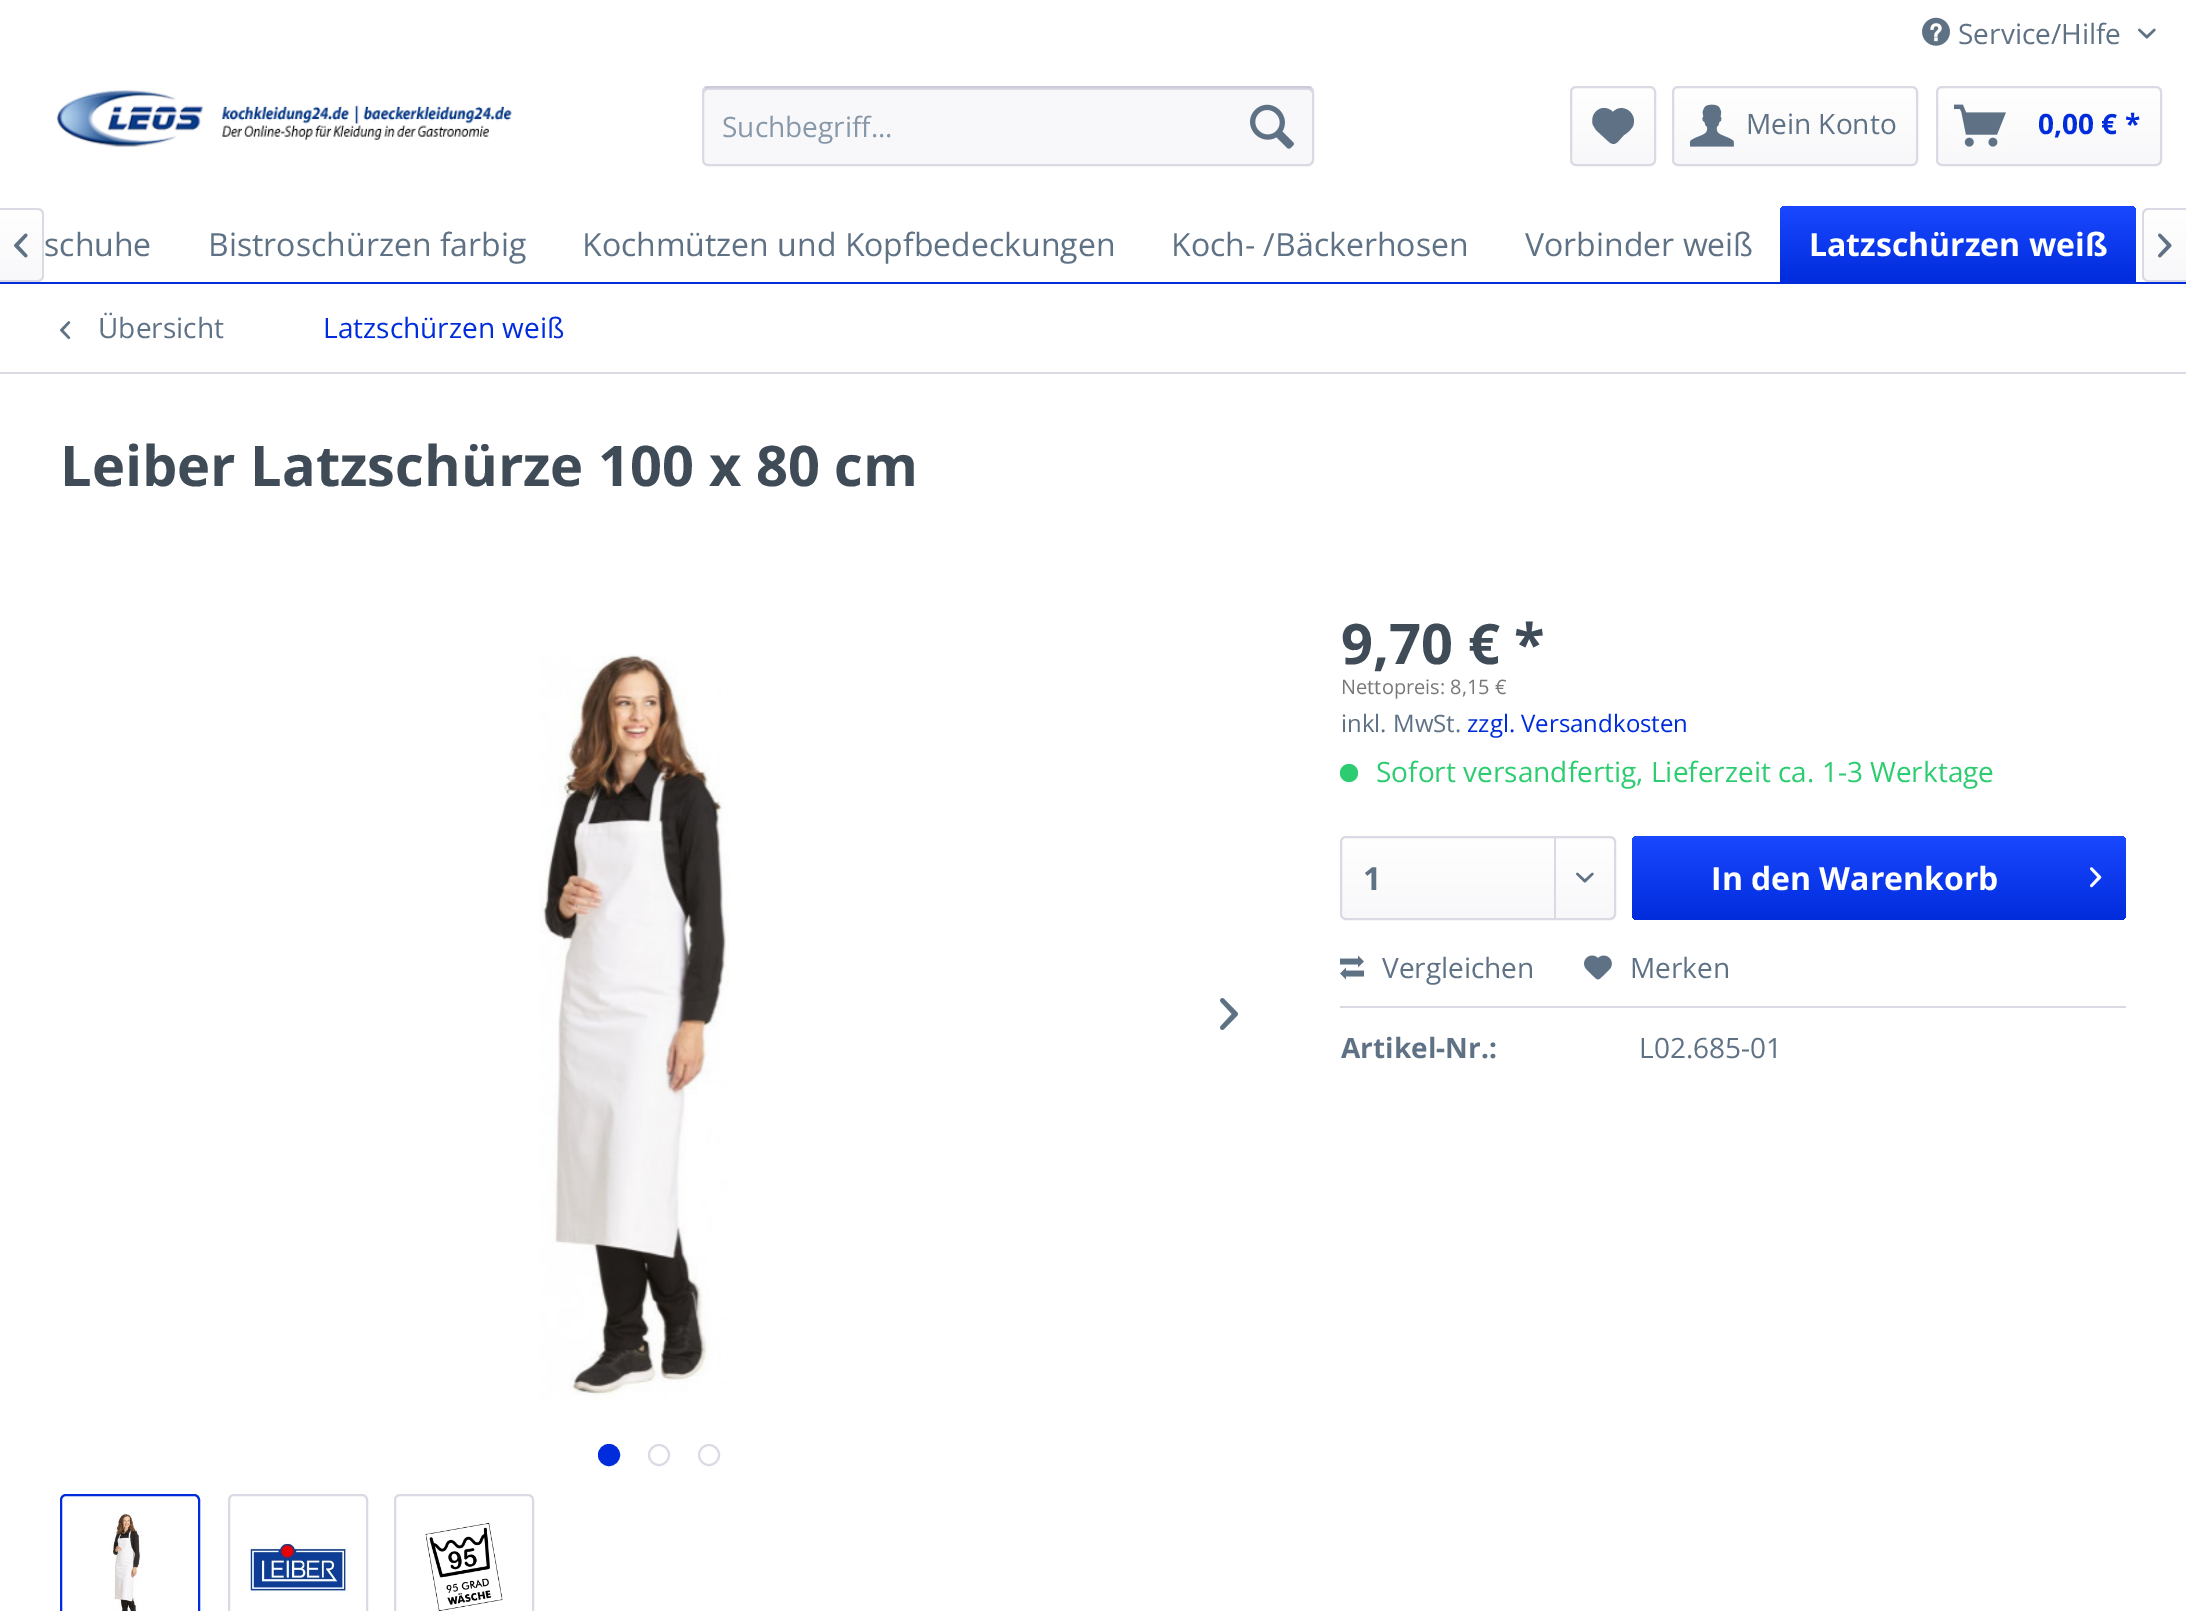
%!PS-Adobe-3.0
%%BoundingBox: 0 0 2186 1611
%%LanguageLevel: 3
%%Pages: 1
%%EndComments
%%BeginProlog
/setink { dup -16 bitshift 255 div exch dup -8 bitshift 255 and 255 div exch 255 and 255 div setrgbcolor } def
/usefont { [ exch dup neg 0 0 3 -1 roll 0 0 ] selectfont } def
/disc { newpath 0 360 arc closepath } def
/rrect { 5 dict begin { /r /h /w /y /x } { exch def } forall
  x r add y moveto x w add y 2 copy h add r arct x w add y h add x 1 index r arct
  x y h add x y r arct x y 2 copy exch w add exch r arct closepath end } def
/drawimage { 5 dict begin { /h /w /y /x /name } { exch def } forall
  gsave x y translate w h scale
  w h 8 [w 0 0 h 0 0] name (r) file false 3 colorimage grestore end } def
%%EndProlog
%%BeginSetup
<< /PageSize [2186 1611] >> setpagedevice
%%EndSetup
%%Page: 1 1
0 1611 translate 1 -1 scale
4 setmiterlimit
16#FFFFFF setink
0 0 2186 1611 rectfill
(img1.raw) 1922 17 28 29 drawimage
/OpenSans-Regular 28 usefont
16#5F7285 setink
1958 44 moveto (Service/Hilfe) show
(img2.raw) 2138 28 18 11 drawimage
(img3.raw) 56 90 456 57 drawimage
16#F8F8FA setink
702 86 612 80 6 rrect fill
16#DADAE5 setink
708 90 moveto 1308 90 lineto 1310 90 1312 92 1312 94 curveto 1312 92 lineto 1312 90 1310 88 1308 88 curveto 708 88 lineto 706 88 704 90 704 92 curveto 704 94 lineto 704 92 706 90 708 90 curveto closepath fill
16#CBCBDB setink
2 setlinewidth
704.5 88.5 moveto 705.5 87.5 706.5 87 708 87 curveto 1308 87 lineto 1309.5 87 1310.5 87.5 1311.5 88.5 curveto stroke
16#DADAE5 setink
1311.5 88.5 moveto 1312.5 89.5 1313 90.5 1313 92 curveto 1313 160 lineto 1313 161.5 1312.5 162.5 1311.5 163.5 curveto 1310.5 164.5 1309.5 165 1308 165 curveto 708 165 lineto 706.5 165 705.5 164.5 704.5 163.5 curveto 703.5 162.5 703 161.5 703 160 curveto 703 92 lineto 703 90.5 703.5 89.5 704.5 88.5 curveto stroke
16#8798A9 setink
722 137 moveto (Suchbegriff...) show
(img4.raw) 1250 104 44 45 drawimage
gsave 1572 88 82 76 4 rrect clip newpath
<< /ShadingType 2 /ColorSpace /DeviceRGB /Coords [1613 88 1613 164] /Extend [true true] /Function << /FunctionType 2 /Domain [0 1] /C0 [1 1 1] /C1 [0.973 0.973 0.98] /N 1 >> >> shfill grestore
16#DADAE5 setink
1571 87 84 78 5 rrect stroke
16#5F7285 setink
1604 108 moveto 1596 108 1590 117 1593 125 curveto 1596 130 lineto 1608 141 lineto 1615 148 1618 141 1624 135 curveto 1627 133 1631 130 1633 126 curveto 1638 113 1622 102 1613 112 curveto 1611 110 1608 108 1604 108 curveto closepath fill
gsave 1674 88 242 76 4 rrect clip newpath
<< /ShadingType 2 /ColorSpace /DeviceRGB /Coords [1795 88 1795 164] /Extend [true true] /Function << /FunctionType 2 /Domain [0 1] /C0 [1 1 1] /C1 [0.973 0.973 0.98] /N 1 >> >> shfill grestore
16#DADAE5 setink
1673 87 244 78 5 rrect stroke
(img5.raw) 1690 104 44 43 drawimage
16#5F7285 setink
1746 134 moveto (Mein Konto) show
gsave 1938 88 222 76 4 rrect clip newpath
<< /ShadingType 2 /ColorSpace /DeviceRGB /Coords [2049 88 2049 164] /Extend [true true] /Function << /FunctionType 2 /Domain [0 1] /C0 [1 1 1] /C1 [0.973 0.973 0.98] /N 1 >> >> shfill grestore
16#DADAE5 setink
1937 87 224 78 5 rrect stroke
(img6.raw) 1954 104 52 43 drawimage
/OpenSans-Bold 28 usefont
16#002CDC setink
2038 134 moveto (0,00 € *) show
0 282 2186 2 rectfill
gsave 0 210 moveto 38 210 lineto 40 210 42 212 42 214 curveto 42 276 lineto 42 278 40 280 38 280 curveto 0 280 lineto closepath clip newpath
<< /ShadingType 2 /ColorSpace /DeviceRGB /Coords [21 210 21 280] /Extend [true true] /Function << /FunctionType 2 /Domain [0 1] /C0 [1 1 1] /C1 [0.973 0.973 0.98] /N 1 >> >> shfill grestore
16#DADAE5 setink
0 208 moveto 38 208 lineto 41 208 44 211 44 214 curveto 44 276 lineto 44 279 41 282 38 282 curveto 0 282 lineto closepath 0 210 moveto 38 210 lineto 40 210 42 212 42 214 curveto 42 276 lineto 42 278 40 280 38 280 curveto 0 280 lineto closepath eofill
(img7.raw) 14 233 14 25 drawimage
/OpenSans-Regular 32 usefont
16#5F7285 setink
[
    [(schuhe) 44 256]
    [(Bistroschürzen farbig) 208 256]
    [(Kochmützen und Kopfbedeckungen) 582 256]
    [(Koch- /Bäckerhosen) 1171 256]
    [(Vorbinder weiß) 1525 256]
] { aload pop moveto show } forall
gsave 1786 206 moveto 2130 206 lineto 2133.5 206 2136 208.5 2136 212 curveto 2136 282 lineto 1780 282 lineto 1780 212 lineto 1780 208.5 1782.5 206 1786 206 curveto closepath clip newpath
<< /ShadingType 2 /ColorSpace /DeviceRGB /Coords [1958 206 1958 282] /Extend [true true] /Function << /FunctionType 2 /Domain [0 1] /C0 [0.102 0.282 1] /C1 [0 0.173 0.863] /N 1 >> >> shfill grestore
/OpenSans-Bold 32 usefont
16#FFFFFF setink
1809 256 moveto (Latzschürzen weiß) show
gsave 2148 210 moveto 2186 210 lineto 2186 280 lineto 2148 280 lineto 2146 280 2144 278 2144 276 curveto 2144 214 lineto 2144 212 2146 210 2148 210 curveto closepath clip newpath
<< /ShadingType 2 /ColorSpace /DeviceRGB /Coords [2165 210 2165 280] /Extend [true true] /Function << /FunctionType 2 /Domain [0 1] /C0 [1 1 1] /C1 [0.973 0.973 0.98] /N 1 >> >> shfill grestore
16#DADAE5 setink
2148 208 moveto 2186 208 lineto 2186 282 lineto 2148 282 lineto 2145 282 2142 279 2142 276 curveto 2142 214 lineto 2142 211 2145 208 2148 208 curveto closepath 2148 210 moveto 2186 210 lineto 2186 280 lineto 2148 280 lineto 2146 280 2144 278 2144 276 curveto 2144 214 lineto 2144 212 2146 210 2148 210 curveto closepath eofill
(img8.raw) 2158 233 14 25 drawimage
0 372 2186 2 rectfill
(img9.raw) 60 321 11 19 drawimage
/OpenSans-Regular 28 usefont
16#5F7285 setink
98 338 moveto (Übersicht) show
16#002CDC setink
323 338 moveto (Latzschürzen weiß) show
/OpenSans-Bold 56 usefont
16#3F4C58 setink
60 486 moveto (Leiber Latzschürze 100 x 80 cm) show
(img10.raw) 539 654 190 747 drawimage
(img11.raw) 1220 998 18 32 drawimage
16#002CDC setink
609 1455 10 disc gsave fill grestore
stroke
16#DADAE5 setink
659 1455 10 disc stroke
709 1455 10 disc stroke
16#002CDC setink
61 1495 138 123 5 rrect stroke
(img12.raw) 109 1513 33 98 drawimage
16#DADAE5 setink
229 1495 138 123 5 rrect stroke
(img13.raw) 249 1538 102 56 drawimage
395 1495 138 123 5 rrect stroke
(img14.raw) 425 1522 78 89 drawimage
16#3F4C58 setink
1341 664 moveto (9,70 € *) show
/OpenSans-Regular 20 usefont
16#777777 setink
1341 694 moveto (Nettopreis: 8,15 €) show
/OpenSans-Regular 24 usefont
16#5F7285 setink
1341 732 moveto (inkl. MwSt.) show
16#002CDC setink
1467 732 moveto (zzgl. Versandkosten) show
16#2ECC71 setink
1349 773 9 disc fill
/OpenSans-Regular 28 usefont
1376 782 moveto (Sofort versandfertig, Lieferzeit ca. 1-3 Werktage) show
gsave 1342 838 272 80 4 rrect clip newpath
<< /ShadingType 2 /ColorSpace /DeviceRGB /Coords [1478 838 1478 918] /Extend [true true] /Function << /FunctionType 2 /Domain [0 1] /C0 [1 1 1] /C1 [0.973 0.973 0.98] /N 1 >> >> shfill grestore
16#DADAE5 setink
1341 837 274 82 5 rrect stroke
/OpenSans-Bold 32 usefont
16#5F7285 setink
1363 890 moveto (1) show
16#DADAE5 setink
1554 838 2 80 rectfill
(img15.raw) 1576 872 18 11 drawimage
gsave 1632 836 494 84 6 rrect clip newpath
<< /ShadingType 2 /ColorSpace /DeviceRGB /Coords [1879 836 1879 920] /Extend [true true] /Function << /FunctionType 2 /Domain [0 1] /C0 [0.102 0.282 1] /C1 [0 0.173 0.863] /N 1 >> >> shfill grestore
16#FFFFFF setink
1711 890 moveto (In den Warenkorb) show
(img16.raw) 2090 867 12 21 drawimage
16#DADAE5 setink
1340 1006 786 2 rectfill
(img17.raw) 1340 955 24 25 drawimage
/OpenSans-Regular 28 usefont
16#5F7285 setink
1382 978 moveto (Vergleichen) show
(img18.raw) 1584 955 28 25 drawimage
1630 978 moveto (Merken) show
/OpenSans-Bold 28 usefont
1341 1058 moveto (Artikel-Nr.:) show
/OpenSans-Regular 28 usefont
1639 1058 moveto (L02.685-01) show
showpage
%%EOF
